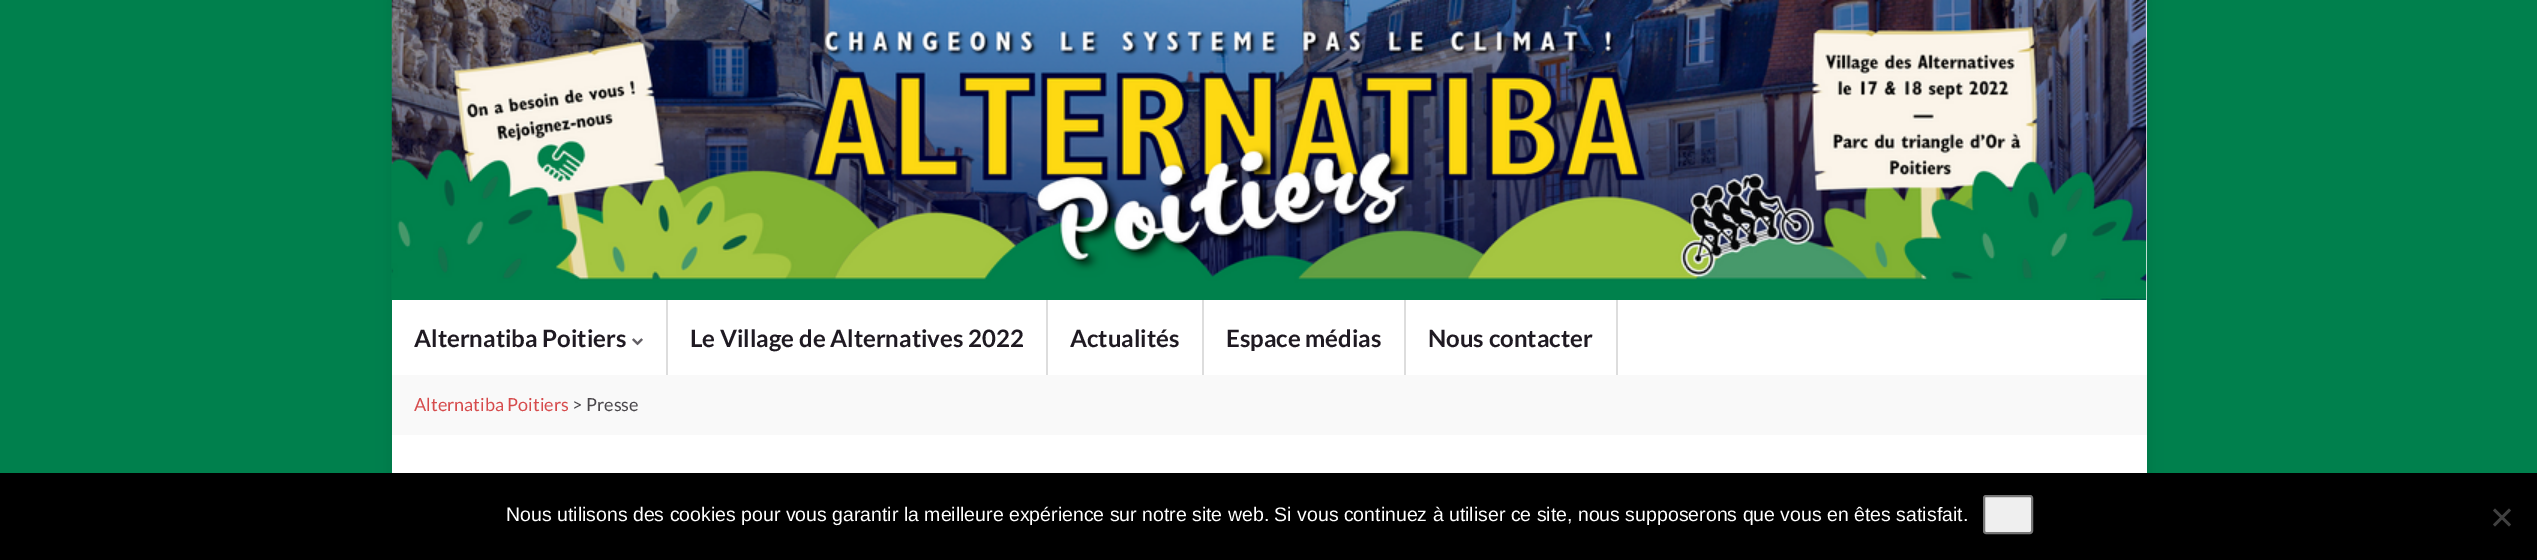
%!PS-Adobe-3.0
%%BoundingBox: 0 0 2537 560
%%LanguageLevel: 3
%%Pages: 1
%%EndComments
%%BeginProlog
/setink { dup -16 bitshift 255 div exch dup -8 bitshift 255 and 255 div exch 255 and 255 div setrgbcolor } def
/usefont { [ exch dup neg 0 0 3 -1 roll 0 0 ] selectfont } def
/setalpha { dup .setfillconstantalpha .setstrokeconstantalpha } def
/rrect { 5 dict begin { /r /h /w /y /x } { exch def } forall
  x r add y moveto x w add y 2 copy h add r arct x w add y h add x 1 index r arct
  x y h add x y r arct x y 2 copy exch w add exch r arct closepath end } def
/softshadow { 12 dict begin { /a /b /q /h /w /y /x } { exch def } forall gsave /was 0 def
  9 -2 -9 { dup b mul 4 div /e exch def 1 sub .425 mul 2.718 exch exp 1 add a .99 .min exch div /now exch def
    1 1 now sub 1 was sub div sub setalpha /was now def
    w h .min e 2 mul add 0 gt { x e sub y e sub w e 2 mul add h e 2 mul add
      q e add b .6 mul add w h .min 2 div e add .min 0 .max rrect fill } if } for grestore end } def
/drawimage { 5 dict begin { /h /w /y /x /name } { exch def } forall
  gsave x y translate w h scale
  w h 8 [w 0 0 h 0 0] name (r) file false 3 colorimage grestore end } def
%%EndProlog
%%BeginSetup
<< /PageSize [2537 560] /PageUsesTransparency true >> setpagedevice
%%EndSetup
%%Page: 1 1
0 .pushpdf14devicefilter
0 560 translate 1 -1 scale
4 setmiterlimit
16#00804D setink
0 0 2537 560 rectfill
16#000000 setink
392 0 1755 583 0 7.5 0.1 softshadow
16#FFFFFF setink
2146 0 1 300 rectfill
(img1.raw) 391 0 1756 300 drawimage
392 300 1755 75 rectfill
16#DDDDDD setink
666 300 2 75 rectfill
/Lato-Bold 24 usefont
16#1F1A22 setink
414 347 moveto (Alternatiba Poitiers) show
(img2.raw) 632 338 11 8 drawimage
16#DDDDDD setink
1046 300 2 75 rectfill
16#1F1A22 setink
690 347 moveto (Le Village de Alternatives 2022) show
16#DDDDDD setink
1202 300 2 75 rectfill
16#1F1A22 setink
1070 347 moveto (Actualités) show
16#DDDDDD setink
1404 300 2 75 rectfill
16#1F1A22 setink
1226 347 moveto (Espace médias) show
16#DDDDDD setink
1616 300 2 75 rectfill
16#1F1A22 setink
1428 347 moveto (Nous contacter) show
16#F9F9F9 setink
392 375 1755 60 rectfill
/Lato-Regular 18 usefont
16#D64B4C setink
414 411 moveto (Alternatiba Poitiers) show
16#4A474B setink
572 411 moveto (> Presse) show
16#FFFFFF setink
392 435 1755 38 rectfill
16#000000 setink
0 473 2537 87 rectfill
/LiberationSans-Regular 19.5 usefont
16#FFFFFF setink
506 521 moveto (Nous utilisons des cookies pour vous garantir la meilleure expérience sur notre site web. Si vous continuez à utiliser ce site, nous supposerons que vous en êtes satisfait.) show
16#EFEFEF setink
1984 496 48 37 2 rrect gsave fill grestore
16#767676 setink
2 setlinewidth
stroke
16#404040 setink
2509 508.5 moveto 2511 510.5 lineto 2495 526.5 lineto 2493 524.5 lineto closepath fill
2493 510.5 moveto 2495 508.5 lineto 2511 524.5 lineto 2509 526.5 lineto closepath fill
.poppdf14devicefilter showpage
%%EOF
